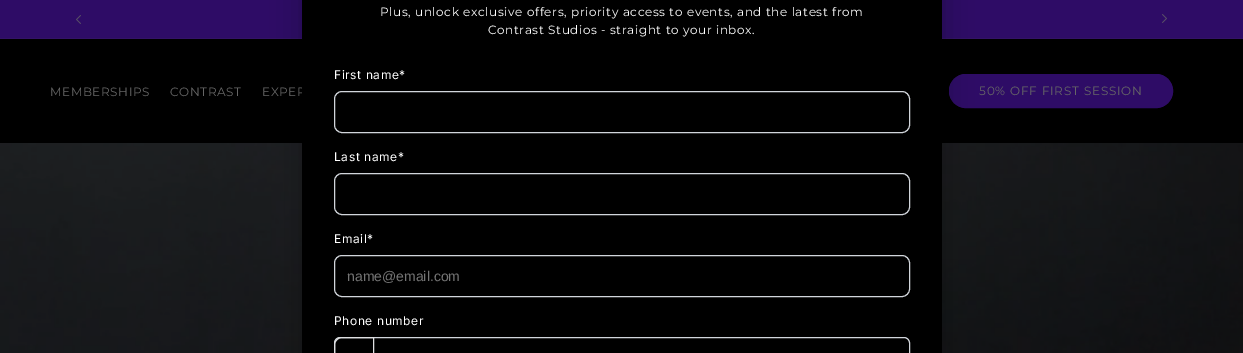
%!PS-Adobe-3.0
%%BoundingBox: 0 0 1243 353
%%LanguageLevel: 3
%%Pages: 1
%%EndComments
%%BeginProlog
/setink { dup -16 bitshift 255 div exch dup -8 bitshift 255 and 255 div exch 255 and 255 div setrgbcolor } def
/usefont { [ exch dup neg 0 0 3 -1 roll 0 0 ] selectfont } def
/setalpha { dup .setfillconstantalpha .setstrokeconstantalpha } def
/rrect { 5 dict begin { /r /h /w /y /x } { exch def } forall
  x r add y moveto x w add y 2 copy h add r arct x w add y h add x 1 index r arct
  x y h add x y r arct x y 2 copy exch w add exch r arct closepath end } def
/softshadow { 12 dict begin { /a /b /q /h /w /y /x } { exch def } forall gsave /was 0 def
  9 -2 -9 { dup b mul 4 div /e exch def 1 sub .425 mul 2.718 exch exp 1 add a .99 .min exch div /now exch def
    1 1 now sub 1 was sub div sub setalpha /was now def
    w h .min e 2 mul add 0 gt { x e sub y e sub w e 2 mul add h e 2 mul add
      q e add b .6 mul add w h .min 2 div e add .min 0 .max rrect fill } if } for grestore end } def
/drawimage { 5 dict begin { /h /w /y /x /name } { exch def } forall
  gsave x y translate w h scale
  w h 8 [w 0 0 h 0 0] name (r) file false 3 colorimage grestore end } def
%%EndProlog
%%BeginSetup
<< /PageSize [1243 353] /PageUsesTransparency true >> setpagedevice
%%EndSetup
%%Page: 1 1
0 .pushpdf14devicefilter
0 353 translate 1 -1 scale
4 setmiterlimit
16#FFFFFF setink
0 0 1243 353 rectfill
16#2E0C66 setink
0 0 1243 38 rectfill
16#331366 setink
0 38 1243 1 rectfill
(img1.raw) 76 15 5 9 drawimage
(img2.raw) 1162 14 5 9 drawimage
16#000000 setink
0 39 1243 104 rectfill
16#2E0C66 setink
949 74 224 34 17 rrect fill
949.5 74.5 223 33 16.5 rrect stroke
(img3.raw) 0 143 1243 210 drawimage
16#000000 setink
302 -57 640 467 12 15 0.25 softshadow
/Montserrat-Regular 12 usefont
16#666666 setink
262 96 moveto 0.6 0 (EXPER) ashow
16#000000 setink
302 0 640 353 rectfill
16#FFFFFF setink
380 16 moveto 0.6 0 (Plus, unlock exclusive offers, priority access to events, and the latest from) ashow
488 34 moveto 0.6 0 (Contrast Studios - straight to your inbox.) ashow
/Inter-Regular 12 usefont
334 79 moveto 0.6 0 (First name*) ashow
16#D1D5DB setink
334.5 91.5 575 41 7.5 rrect stroke
16#FFFFFF setink
334 161 moveto 0.6 0 (Last name*) ashow
16#D1D5DB setink
334.5 173.5 575 41 7.5 rrect stroke
16#FFFFFF setink
334 243 moveto 0.6 0 (Email*) ashow
16#D1D5DB setink
334.5 255.5 575 41 7.5 rrect stroke
/LiberationSans-Regular 14 usefont
16#757575 setink
347 281 moveto (name@email.com) show
/Inter-Regular 12 usefont
16#FFFFFF setink
334 325 moveto 0.6 0 (Phone number) ashow
16#D1D5DB setink
334.5 337.5 575 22 5.5 rrect stroke
16#DFE0E2 setink
342 337.5 moveto 373.5 337.5 lineto 373.5 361.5 lineto 342 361.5 lineto 338 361.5 334.5 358 334.5 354 curveto 334.5 345 lineto 334.5 341 338 337.5 342 337.5 curveto closepath stroke
/Montserrat-Regular 12 usefont
16#666666 setink
50 96 moveto 0.6 0 (MEMBERSHIPS) ashow
170 96 moveto 0.6 0 (CONTRAST) ashow
979 95 moveto 0.8 0 (50% OFF FIRST SESSION) ashow
.poppdf14devicefilter showpage
%%EOF
